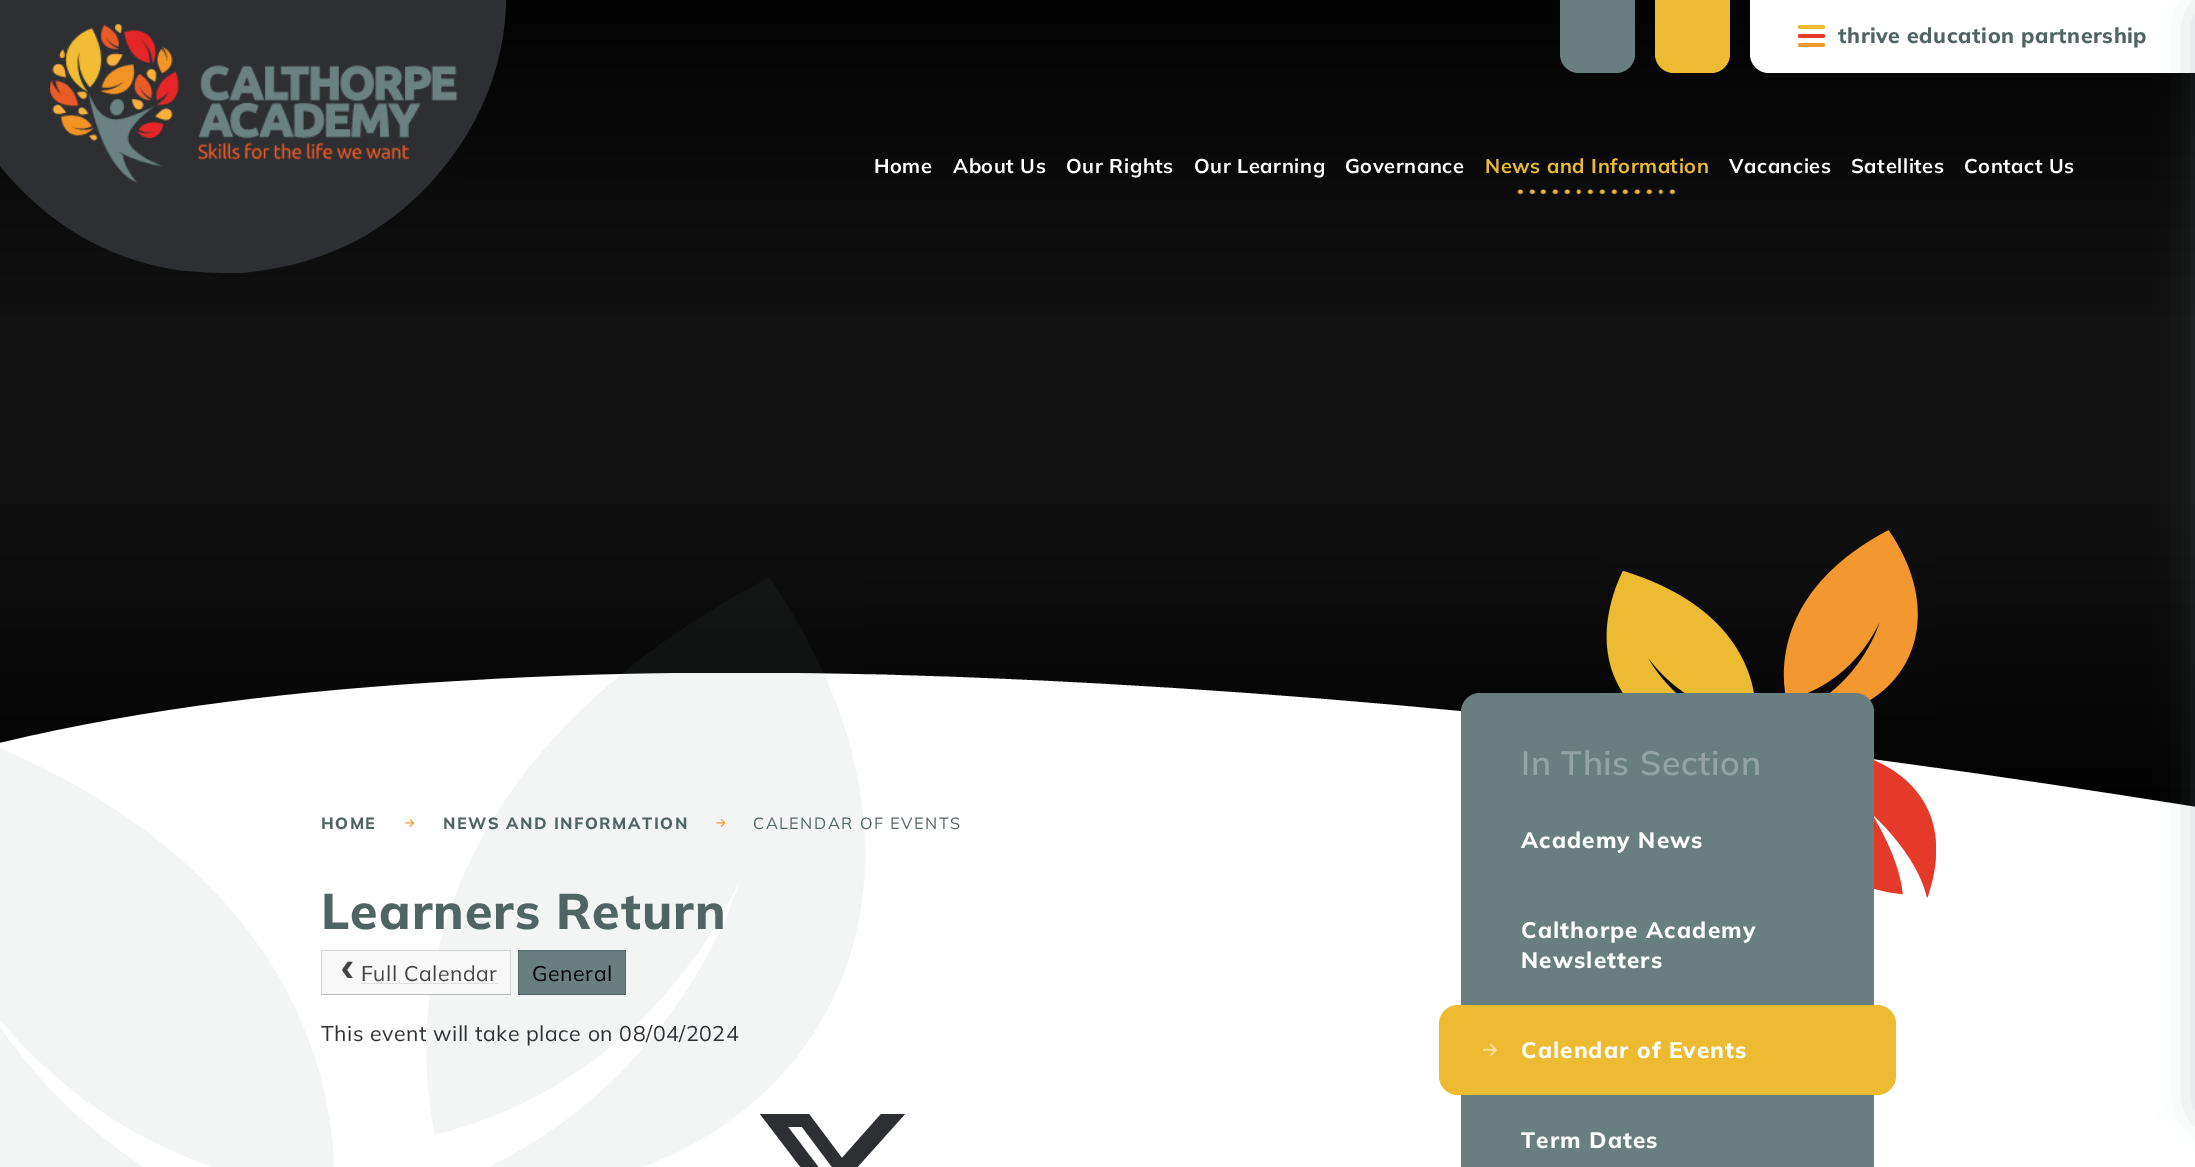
%!PS
<< /PageSize [2195 1167] /PageUsesTransparency true >> setpagedevice
/rgb { 3 { 255 div 3 1 roll } repeat setrgbcolor } def
/font { [ exch dup neg 0 0 3 -1 roll 0 0 ] selectfont } def
/alpha { dup .setfillconstantalpha .setstrokeconstantalpha } def
/roundrect { 5 dict begin { /r /h /w /y /x } { exch def } forall
  x r add y moveto x w add y 2 copy h add r arct x w add y h add x 1 index r arct
  x y h add x y r arct x y 2 copy exch w add exch r arct closepath end } def
/shadow { 12 dict begin { /a /b /q /h /w /y /x } { exch def } forall gsave /was 0 def
  9 -2 -9 { dup b mul 4 div /e exch def 1 sub .425 mul 2.718 exch exp 1 add a .99 .min exch div /now exch def
    1 1 now sub 1 was sub div sub alpha /was now def
    w h .min e 2 mul add 0 gt { x e sub y e sub w e 2 mul add h e 2 mul add
      q e add b .6 mul add w h .min 2 div e add .min 0 .max roundrect fill } if } for grestore end } def
/picture { 5 dict begin { /h /w /y /x /name } { exch def } forall
  gsave x y translate w h scale
  w h 8 [w 0 0 h 0 0] name (r) file false 3 colorimage grestore end } def
0 .pushpdf14devicefilter
0 1167 translate 1 -1 scale
4 setmiterlimit
255 255 255 rgb
0 0 2195 1167 rectfill
gsave 0 0 moveto 2195 0 lineto 2195 807 lineto 0 807 lineto closepath clip newpath
<< /ShadingType 2 /ColorSpace /DeviceRGB /Coords [1098 0 1098 813] /Extend [true true] /Function << /FunctionType 3 /Domain [0 1] /Functions [<< /FunctionType 2 /Domain [0 1] /C0 [0.012 0.012 0.012] /C1 [0.067 0.067 0.067] /N 1 >> << /FunctionType 2 /Domain [0 1] /C0 [0.067 0.067 0.067] /C1 [0.067 0.067 0.067] /N 1 >> << /FunctionType 2 /Domain [0 1] /C0 [0.067 0.067 0.067] /C1 [0.008 0.008 0.008] /N 1 >>] /Bounds [0.4 0.6] /Encode [0 1 0 1 0 1] >> >> shfill grestore
gsave
0 673 2195 141 rectclip
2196 814 moveto -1 814 lineto -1 743 lineto 149 707 303 690 457 681 curveto 647 669 837 671 1027 680 curveto 1419 698 1809 745 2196 807 curveto closepath fill
grestore
(img/1.rgb) 1606 530 330 368 picture
45 47 51 rgb
234 273 moveto 215 273 196 272 178 270 curveto 105 259 46 222 0 166 curveto 0 0 lineto 506 0 lineto 505 67 478 129 434 179 curveto 413 202 390 221 363 237 curveto 339 250 313 260 286 266 curveto 271 269 250 273 234 273 curveto closepath fill
(img/2.rgb) 49 24 409 159 picture
105 127 127 rgb
1560 0 moveto 1635 0 lineto 1635 54 lineto 1635 64.5 1626.5 73 1616 73 curveto 1579 73 lineto 1568.5 73 1560 64.5 1560 54 curveto closepath fill
237 187 49 rgb
1655 0 moveto 1730 0 lineto 1730 54 lineto 1730 64.5 1721.5 73 1711 73 curveto 1674 73 lineto 1663.5 73 1655 64.5 1655 54 curveto closepath fill
255 255 255 rgb
1750 0 moveto 2195 0 lineto 2195 73 lineto 1769 73 lineto 1758.5 73 1750 64.5 1750 54 curveto closepath fill
237 187 49 rgb
1798 25 27 4 2 roundrect fill
229 57 42 rgb
1798 34 27 4 2 roundrect fill
242 152 47 rgb
1798 43 27 4 2 roundrect fill
(img/3.rgb) 1517 188 159 8 picture
105 127 127 rgb
2195 0 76 1125 19 19 0.3 shadow
(img/4.rgb) 0 578 865 589 picture
(img/5.rgb) 405 819 9 8 picture
(img/6.rgb) 716 819 9 8 picture
248 248 248 rgb
321 950 190 45 rectfill
211 211 211 rgb
321 950 moveto 511 950 lineto 510 951 lineto 322 951 lineto closepath fill
0.15 alpha
0 0 0 rgb
511 950 moveto 511 995 lineto 510 994 lineto 510 951 lineto closepath fill
0.25 alpha
511 995 moveto 321 995 lineto 322 994 lineto 510 994 lineto closepath fill
0.15 alpha
321 995 moveto 321 950 lineto 322 951 lineto 322 994 lineto closepath fill
1 alpha
219 224 224 rgb
361 983 137 1 rectfill
105 127 127 rgb
518 950 108 45 rectfill
89 108 108 rgb
518 950 moveto 626 950 lineto 625 951 lineto 519 951 lineto closepath fill
0.15 alpha
0 0 0 rgb
626 950 moveto 626 995 lineto 625 994 lineto 625 951 lineto closepath fill
0.25 alpha
626 995 moveto 518 995 lineto 519 994 lineto 625 994 lineto closepath fill
0.15 alpha
518 995 moveto 518 950 lineto 519 951 lineto 519 994 lineto closepath fill
1 alpha
45 47 51 rgb
881 1114 moveto 905 1114 lineto 853 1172 lineto 914 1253 lineto 867 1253 lineto 829 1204 lineto 787 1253 lineto 763 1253 lineto 818 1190 lineto 760 1114 lineto 809 1114 lineto 842 1158 lineto closepath 873 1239 moveto 886 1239 lineto 802 1127 lineto 788 1127 lineto closepath fill
105 127 127 rgb
1461 693 413 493 19 roundrect fill
237 187 49 rgb
1439 1005 457 90 19 roundrect fill
(img/7.rgb) 1483 1043 14 13 picture
/Mulish-ExtraBold 21.25 font
81 100 100 rgb
1838 43 moveto 0.55 0 (thrive education partnership) ashow
/Mulish-Bold 20 font
255 255 255 rgb
874 173 moveto 0.55 0 (Home) ashow
953 173 moveto 0.55 0 (About Us) ashow
1066 173 moveto 0.55 0 (Our Rights) ashow
1194 173 moveto 0.55 0 (Our Learning) ashow
1345 173 moveto 0.55 0 (Governance) ashow
237 187 49 rgb
1485 173 moveto 0.55 0 (News and Information) ashow
255 255 255 rgb
1729 173 moveto 0.55 0 (Vacancies) ashow
1851 173 moveto 0.55 0 (Satellites) ashow
1964 173 moveto 0.55 0 (Contact Us) ashow
/Mulish-ExtraBold 16.25 font
81 100 100 rgb
321 829 moveto 1.5 0 (HOME) ashow
443 829 moveto 1.5 0 (NEWS AND INFORMATION) ashow
/Mulish-Regular 16.25 font
753 829 moveto 1.5 0 (CALENDAR OF EVENTS) ashow
/Mulish-ExtraBold 50 font
321 929 moveto 1 0 (Learners Return) ashow
/LiberationMono-Bold 42 font
68 68 68 rgb
335 981 moveto 0.55 0 (‹) ashow
/Mulish-Regular 21.25 font
361 981 moveto 0.55 0 (Full Calendar) ashow
0 0 0 rgb
532 981 moveto 0.55 0 (General) ashow
45 47 51 rgb
321 1041 moveto 0.55 0 (This event will take place on 08/04/2024) ashow
/Mulish-SemiBold 33.75 font
147 163 163 rgb
1521 775 moveto 0.7 0 (In This Section) ashow
/Mulish-ExtraBold 22.5 font
255 255 255 rgb
1521 848 moveto 1.1 0 (Academy News) ashow
1521 938 moveto 1.1 0 (Calthorpe Academy) ashow
1521 968 moveto 1.1 0 (Newsletters) ashow
1521 1058 moveto 1.1 0 (Calendar of Events) ashow
1521 1148 moveto 1.1 0 (Term Dates) ashow
.poppdf14devicefilter showpage
